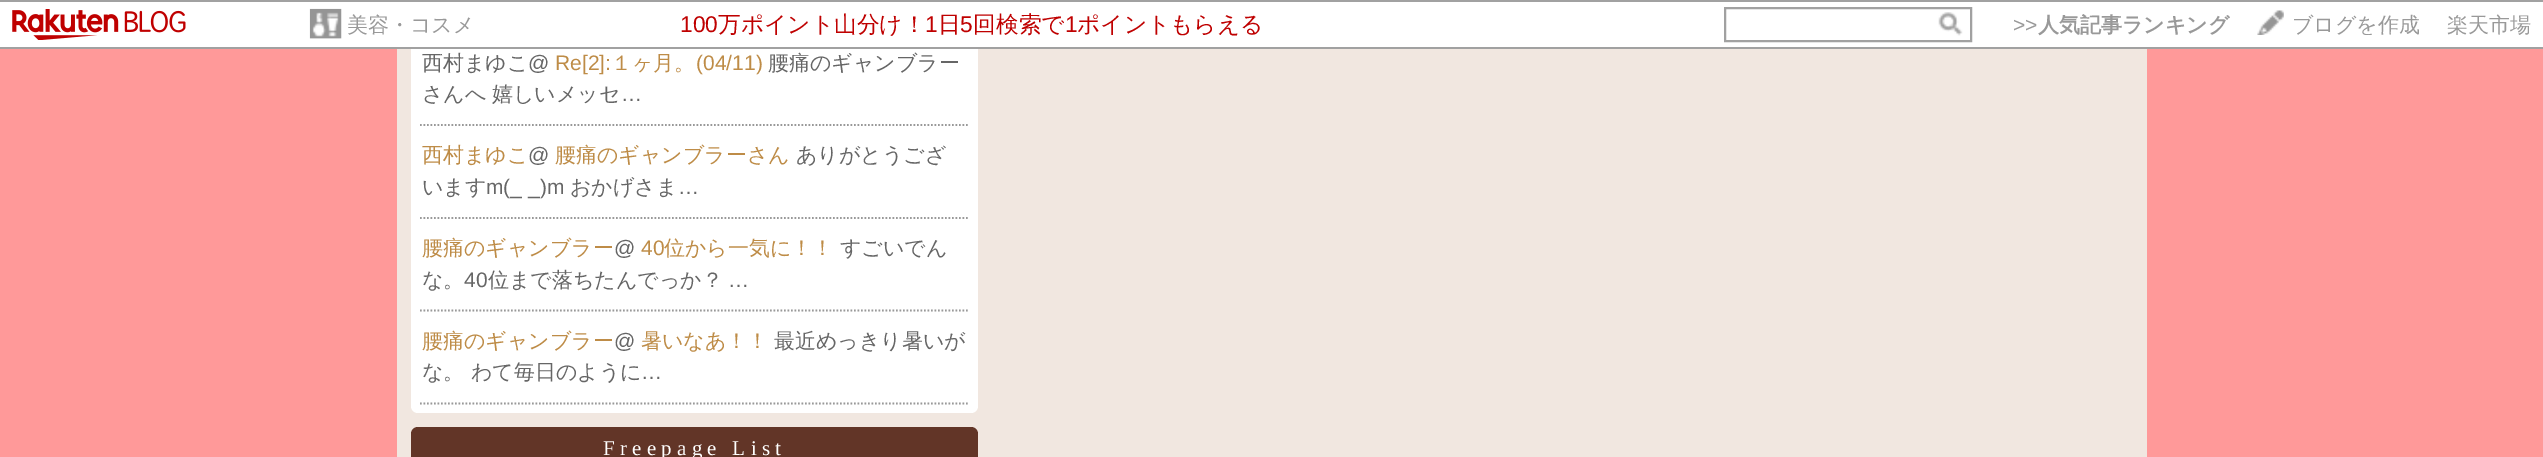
%!PS
<< /PageSize [2543 457] >> setpagedevice
/rgb { 3 { 255 div 3 1 roll } repeat setrgbcolor } def
/font { [ exch dup neg 0 0 3 -1 roll 0 0 ] selectfont } def
/picture { 5 dict begin { /h /w /y /x /name } { exch def } forall
  gsave x y translate w h scale
  w h 8 [w 0 0 h 0 0] name (r) file false 3 colorimage grestore end } def
0 457 translate 1 -1 scale
4 setmiterlimit
255 153 153 rgb
0 0 2543 457 rectfill
241 231 224 rgb
397 49 1750 408 rectfill
255 255 255 rgb
411 -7 moveto 978 -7 lineto 978 406 lineto 978 410 975 413 971 413 curveto 418 413 lineto 414 413 411 410 411 406 curveto closepath fill
[
  [0 2 2543 45 255 255 255]
  [0 0 2543 2 161 161 161]
  [0 47 2543 2 161 161 161]
] { aload pop rgb rectfill } forall
(img/1.rgb) 12 9 174 31 picture
(img/2.rgb) 309 8 33 31 picture
2 setlinewidth
1725 8 246 33 rectstroke
(img/3.rgb) 1938 12 25 24 picture
(img/4.rgb) 2257 10 27 25 picture
153 153 153 rgb
1.8 setlinewidth
[1.75 1.75] 0 setdash
420 125 moveto 969.5 125 lineto stroke
420 218 moveto 969.5 218 lineto stroke
420 310.5 moveto 969.5 310.5 lineto stroke
420 403.5 moveto 969.5 403.5 lineto stroke
98 53 39 rgb
418 427 moveto 971 427 lineto 975 427 978 430 978 434 curveto 978 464 lineto 411 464 lineto 411 434 lineto 411 430 414 427 418 427 curveto closepath fill
/WenQuanYiZenHei-Medium 21 font
153 153 153 rgb
347 32 moveto (美容・コスメ) show
/LiberationSans-Regular 22.75 font
191 0 0 rgb
680 32 moveto (100) show
/WenQuanYiZenHei-Medium 22.75 font
718 32 moveto (万ポイント山分け！) show
/LiberationSans-Regular 22.75 font
925 32 moveto (1) show
/WenQuanYiZenHei-Medium 22.75 font
938 32 moveto (日) show
/LiberationSans-Regular 22.75 font
960 32 moveto (5) show
/WenQuanYiZenHei-Medium 22.75 font
973 32 moveto (回検索で) show
/LiberationSans-Regular 22.75 font
1065 32 moveto (1) show
/WenQuanYiZenHei-Medium 22.75 font
1077 32 moveto (ポイントもらえる) show
/LiberationSans-Regular 21 font
153 153 153 rgb
2013 32 moveto (>>) show
/WenQuanYiZenHei-Bold 21 font
2038 32 moveto (人気記事ランキング) show
gsave
2013 7 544 28 rectclip
/WenQuanYiZenHei-Medium 21 font
2292 32 moveto (ブログを作成) show
grestore
/WenQuanYiZenHei-Medium 21 font
2447 32 moveto (楽天市場) show
102 102 102 rgb
422 70 moveto (西村まゆこ) show
/LiberationSans-Regular 21 font
528 70 moveto (@) show
190 140 71 rgb
555 70 moveto (Re[2]:) show
/WenQuanYiZenHei-Medium 21 font
611 70 moveto (１ヶ月。) show
/LiberationSans-Regular 21 font
696 70 moveto (\(04/11\)) show
/WenQuanYiZenHei-Medium 21 font
102 102 102 rgb
[
  [(腰痛のギャンブラー) 768 70]
  [(さんへ) 422 101]
  [(嬉しいメッセ) 492 101]
] { aload pop moveto show } forall
/LiberationSans-Regular 21 font
621 101 moveto (…) show
/WenQuanYiZenHei-Medium 21 font
190 140 71 rgb
422 162 moveto (西村まゆこ) show
/LiberationSans-Regular 21 font
102 102 102 rgb
528 162 moveto (@) show
/WenQuanYiZenHei-Medium 21 font
190 140 71 rgb
555 162 moveto (腰痛のギャンブラーさん) show
102 102 102 rgb
796 162 moveto (ありがとうござ) show
422 194 moveto (います) show
/LiberationSans-Regular 21 font
486 194 moveto (m\(_ _\)m) show
/WenQuanYiZenHei-Medium 21 font
570 194 moveto (おかげさま) show
/LiberationSans-Regular 21 font
678 194 moveto (…) show
/WenQuanYiZenHei-Medium 21 font
190 140 71 rgb
422 255 moveto (腰痛のギャンブラー) show
/LiberationSans-Regular 21 font
102 102 102 rgb
614 255 moveto (@) show
190 140 71 rgb
641 255 moveto (40) show
/WenQuanYiZenHei-Medium 21 font
664 255 moveto (位から一気に！！) show
102 102 102 rgb
840 255 moveto (すごいでん) show
422 287 moveto (な。) show
/LiberationSans-Regular 21 font
464 287 moveto (40) show
/WenQuanYiZenHei-Medium 21 font
488 287 moveto (位まで落ちたんでっか？) show
/LiberationSans-Regular 21 font
728 287 moveto (…) show
/WenQuanYiZenHei-Medium 21 font
190 140 71 rgb
422 348 moveto (腰痛のギャンブラー) show
/LiberationSans-Regular 21 font
102 102 102 rgb
614 348 moveto (@) show
/WenQuanYiZenHei-Medium 21 font
190 140 71 rgb
641 348 moveto (暑いなあ！！) show
102 102 102 rgb
774 348 moveto (最近めっきり暑いが) show
422 379 moveto (な。 わて毎日のように) show
/LiberationSans-Regular 21 font
641 379 moveto (…) show
/LiberationSerif-Regular 21 font
255 255 255 rgb
603 455 moveto 5.25 0 (Freepage List) ashow
showpage
